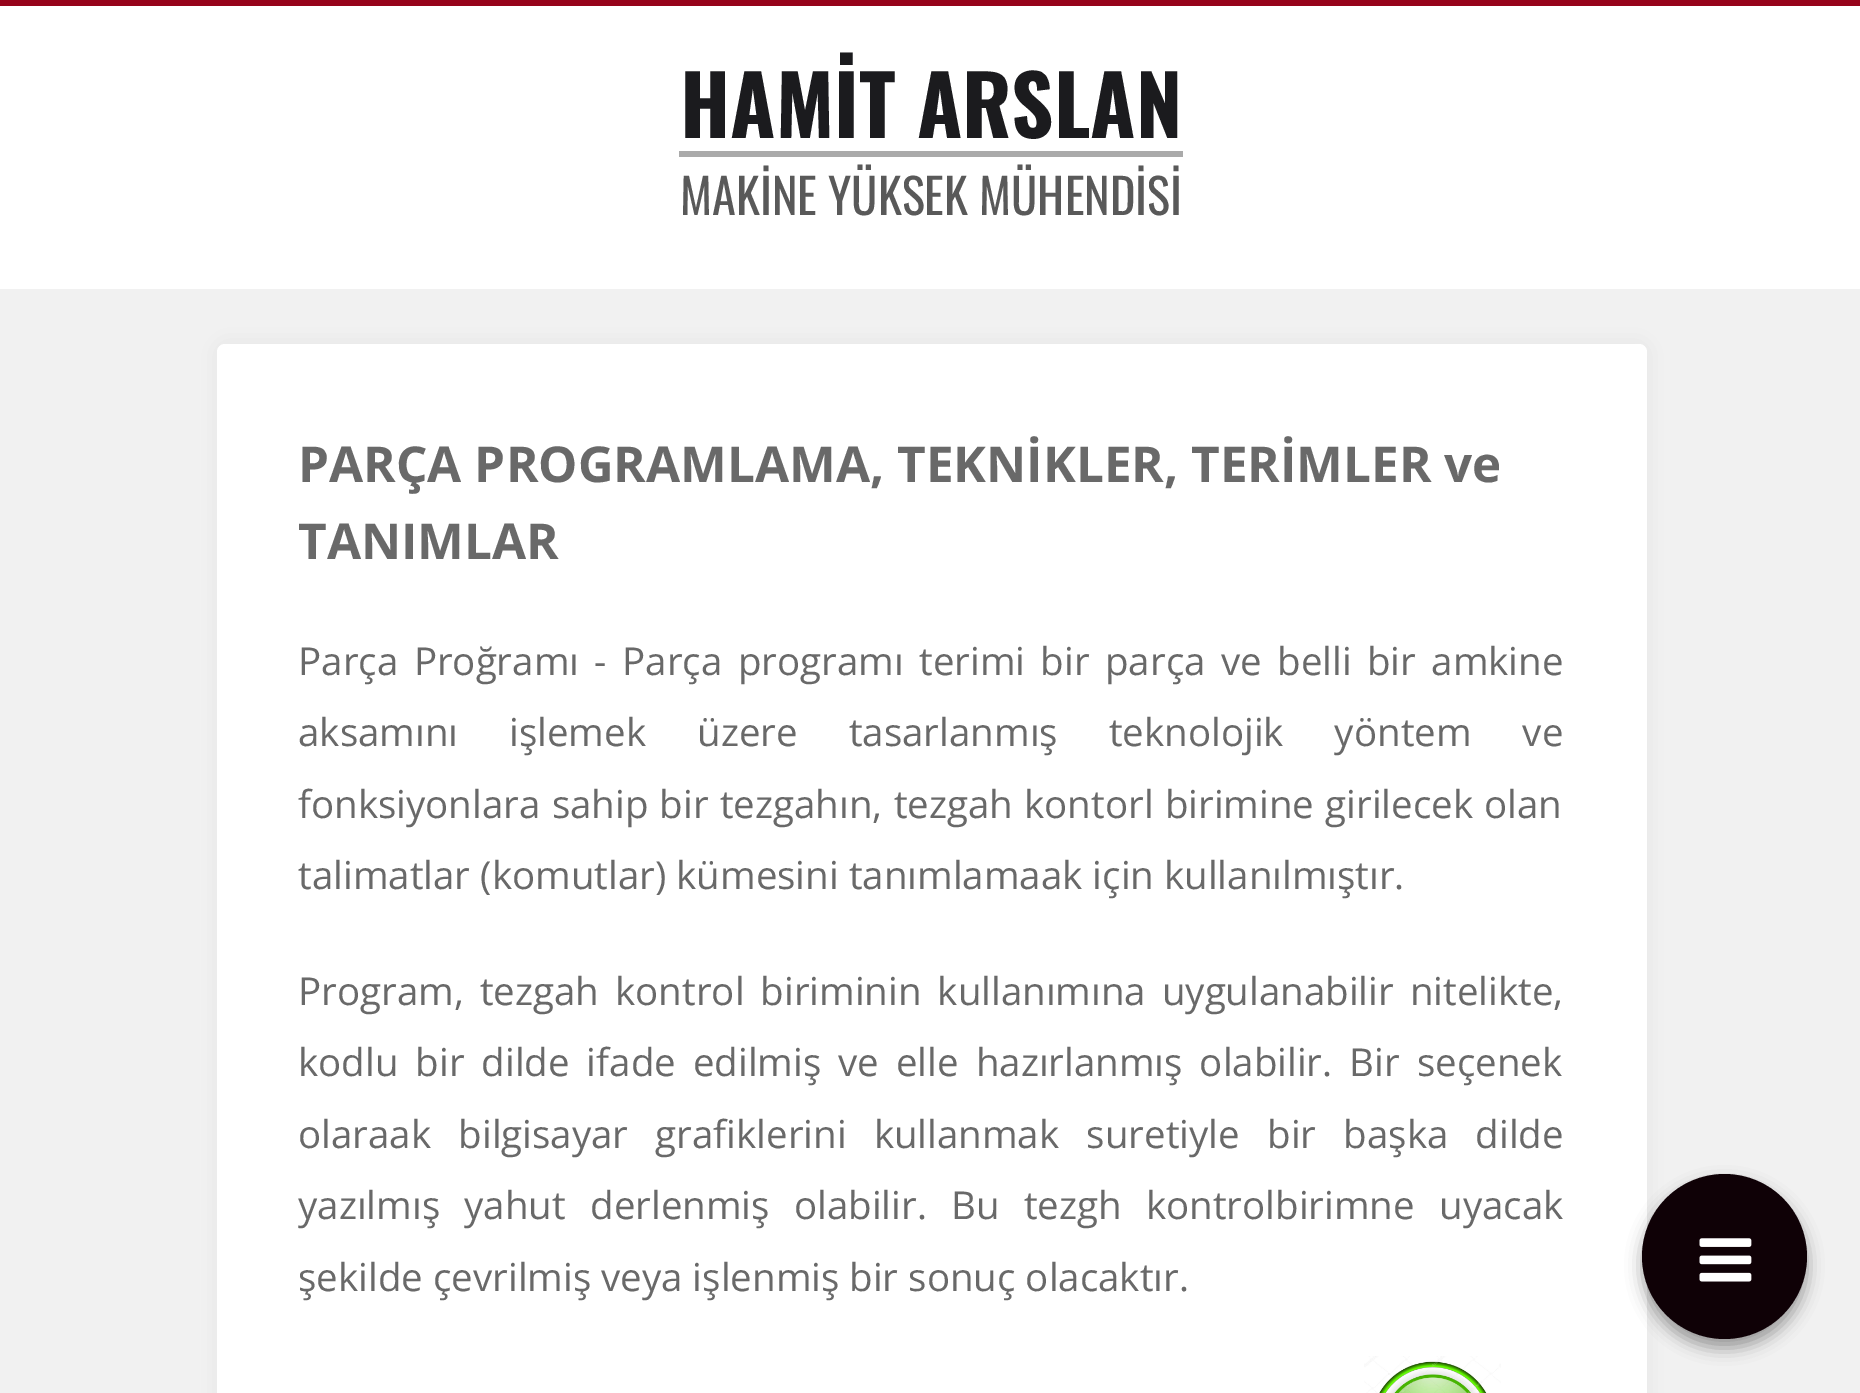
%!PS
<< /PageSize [1860 1393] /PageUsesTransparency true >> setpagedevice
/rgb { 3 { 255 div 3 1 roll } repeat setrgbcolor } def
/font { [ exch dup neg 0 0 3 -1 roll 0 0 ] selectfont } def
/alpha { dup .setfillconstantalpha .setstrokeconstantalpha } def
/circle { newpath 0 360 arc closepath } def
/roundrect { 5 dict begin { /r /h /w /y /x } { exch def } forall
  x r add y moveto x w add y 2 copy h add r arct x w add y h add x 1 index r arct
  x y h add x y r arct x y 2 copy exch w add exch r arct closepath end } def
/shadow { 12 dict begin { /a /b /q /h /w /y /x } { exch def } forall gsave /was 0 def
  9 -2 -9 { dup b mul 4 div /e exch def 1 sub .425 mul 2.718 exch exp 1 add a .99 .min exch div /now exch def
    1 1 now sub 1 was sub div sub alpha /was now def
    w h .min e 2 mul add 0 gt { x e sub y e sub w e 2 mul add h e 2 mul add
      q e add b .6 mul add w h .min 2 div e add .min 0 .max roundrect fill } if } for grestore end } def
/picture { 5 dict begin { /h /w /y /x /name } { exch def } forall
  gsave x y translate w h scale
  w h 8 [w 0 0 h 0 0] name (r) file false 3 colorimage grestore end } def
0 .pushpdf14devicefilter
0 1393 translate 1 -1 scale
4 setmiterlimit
241 241 241 rgb
0 0 1860 1393 rectfill
[
  [0 6 1860 283 255 255 255]
  [0 0 1860 6 150 3 26]
  [679 151 504 6 170 170 170]
] { aload pop rgb rectfill } forall
230 230 230 rgb
215 341 1435 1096 11 11 1 shadow
255 255 255 rgb
217 344 1430 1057 8 roundrect fill
(img/1.rgb) 1364 1356 137 37 picture
0 0 0 rgb
1642 1183 165 165 82.5 8 0.23 shadow
1642 1183 165 165 82.5 8 0.16 shadow
15 1 6 rgb
1724.5 1256.5 82.5 circle fill
(img/2.rgb) 1699 1238 53 44 picture
/Oswald-Bold 82.5 font
27 27 30 rgb
680 138 moveto (HAMİT ARSLAN) show
/Oswald-Regular 48.4 font
89 89 89 rgb
680 215 moveto (MAKİNE YÜKSEK MÜHENDİSİ) show
/OpenSans-Bold 49.5 font
105 105 105 rgb
298 482 moveto (PARÇA PROGRAMLAMA, TEKNİKLER, TERİMLER ve) show
298 559 moveto (TANIMLAR) show
/OpenSans-Regular 38.5 font
298 675 moveto 5.4 0 32 (Parça Proğramı - Parça programı terimi bir parça ve belli bir amkine) widthshow
298 746 moveto 41 0 32 (aksamını işlemek üzere tasarlanmış teknolojik yöntem ve) widthshow
298 818 moveto 1.25 0 32 (fonksiyonlara sahip bir tezgahın, tezgah kontorl birimine girilecek olan) widthshow
298 889 moveto (talimatlar \(komutlar\) kümesini tanımlamaak için kullanılmıştır.) show
298 1005 moveto 6 0 32 (Program, tezgah kontrol biriminin kullanımına uygulanabilir nitelikte,) widthshow
298 1076 moveto 7 0 32 (kodlu bir dilde ifade edilmiş ve elle hazırlanmış olabilir. Bir seçenek) widthshow
298 1148 moveto 17.25 0 32 (olaraak bilgisayar grafiklerini kullanmak suretiyle bir başka dilde) widthshow
298 1219 moveto 14.25 0 32 (yazılmış yahut derlenmiş olabilir. Bu tezgh kontrolbirimne uyacak) widthshow
298 1291 moveto (şekilde çevrilmiş veya işlenmiş bir sonuç olacaktır.) show
.poppdf14devicefilter showpage
